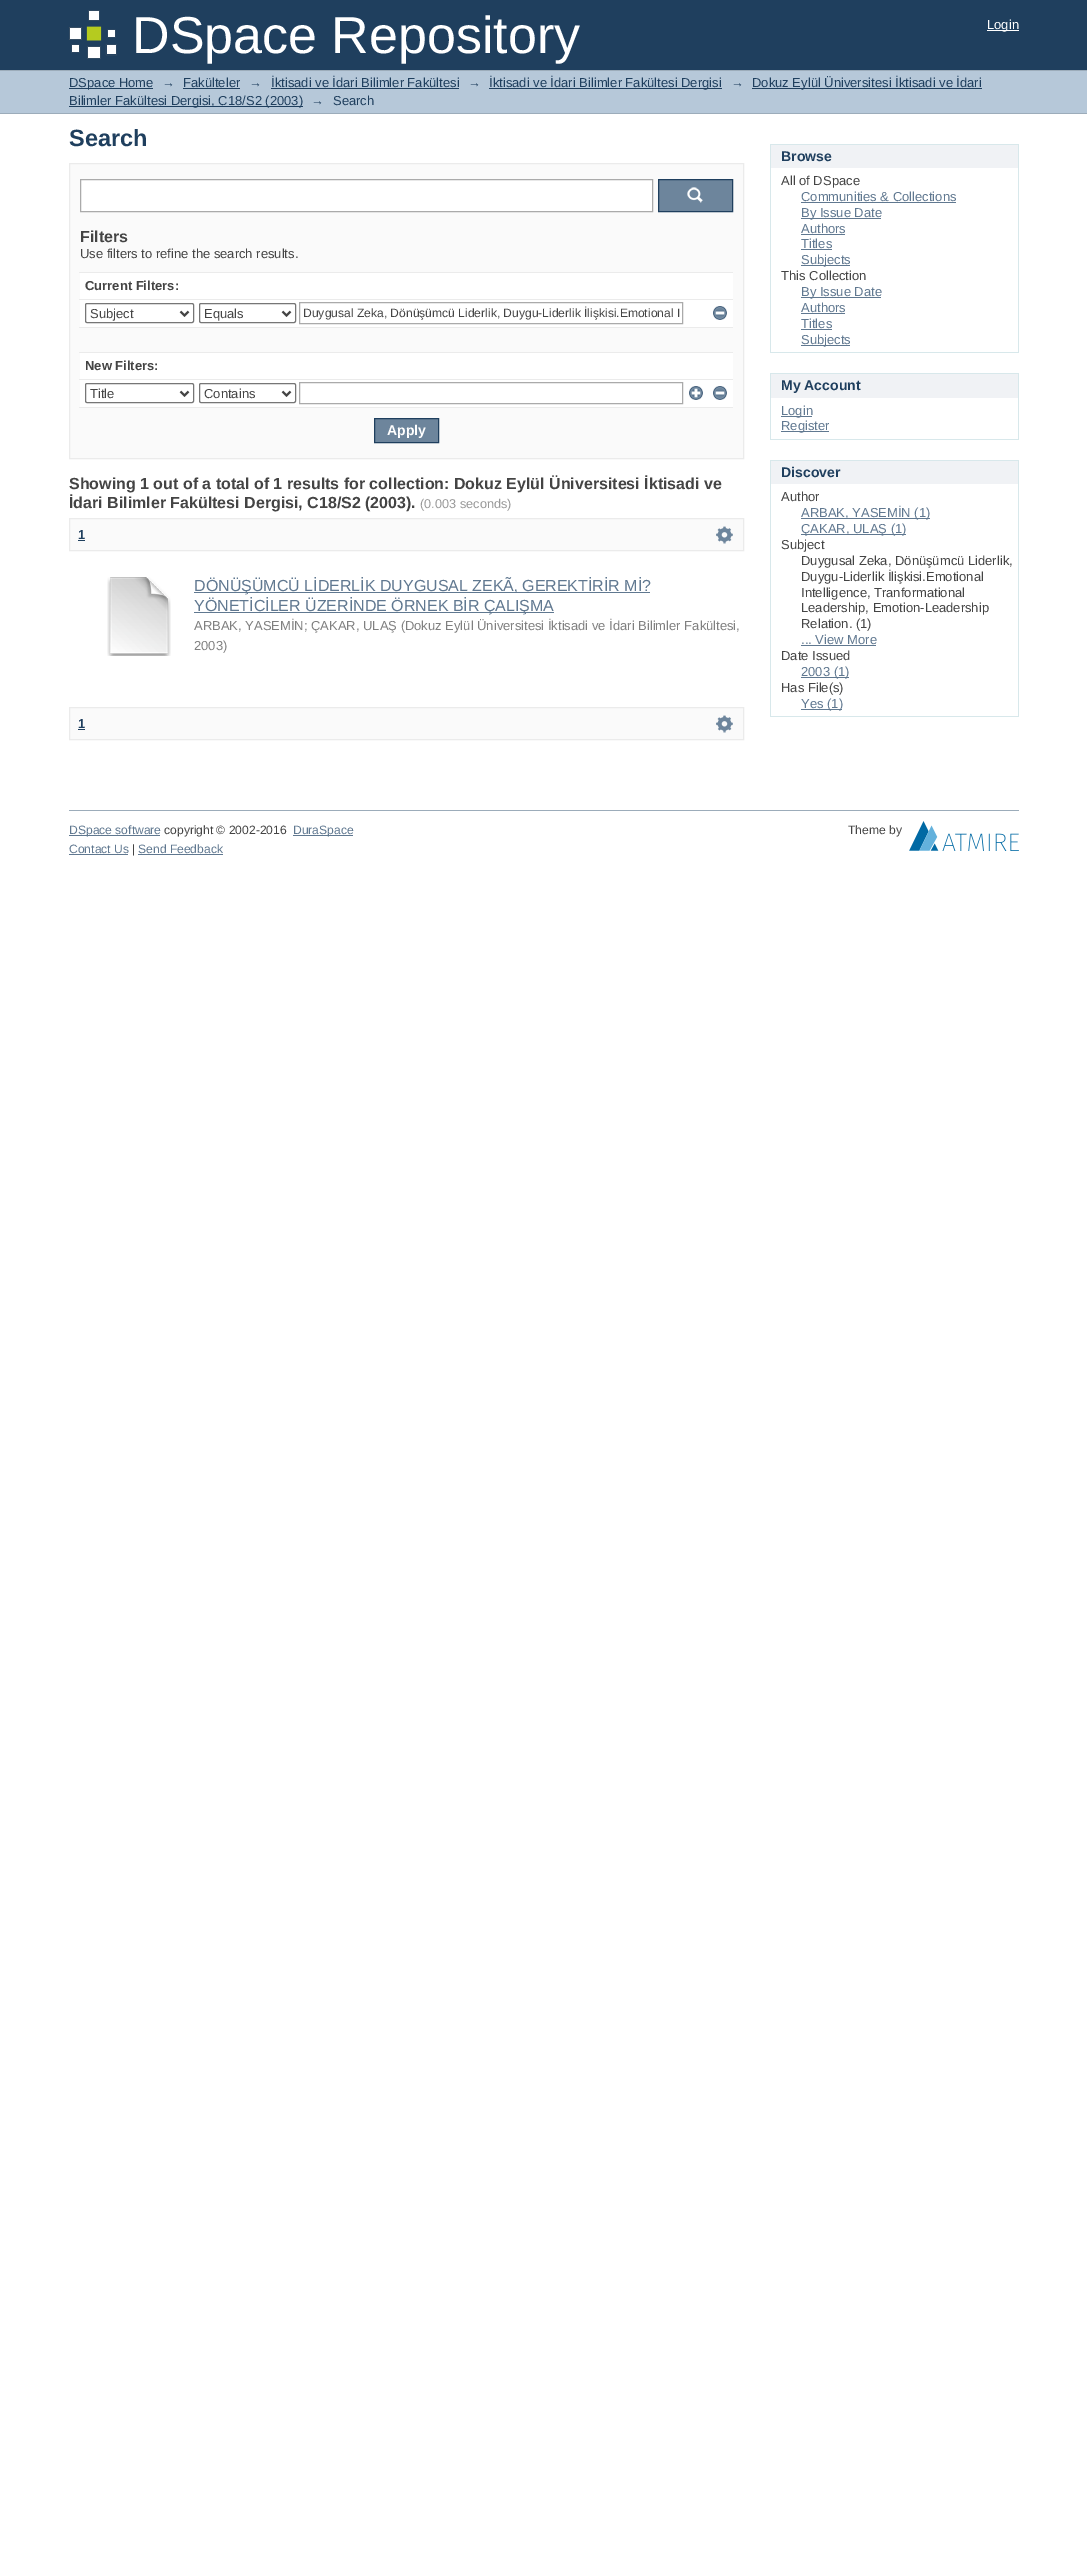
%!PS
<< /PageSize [1087 2564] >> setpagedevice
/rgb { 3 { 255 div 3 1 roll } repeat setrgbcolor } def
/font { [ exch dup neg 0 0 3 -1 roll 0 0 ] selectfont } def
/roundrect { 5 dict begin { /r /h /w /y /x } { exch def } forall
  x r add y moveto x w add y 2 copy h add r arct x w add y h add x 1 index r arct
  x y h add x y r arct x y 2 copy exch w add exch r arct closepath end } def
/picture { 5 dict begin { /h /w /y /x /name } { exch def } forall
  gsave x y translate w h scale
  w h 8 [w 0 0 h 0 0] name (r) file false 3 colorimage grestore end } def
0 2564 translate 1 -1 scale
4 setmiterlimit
255 255 255 rgb
0 0 1087 2564 rectfill
31 63 94 rgb
0 0 1087 70 rectfill
(img/1.rgb) 69 10 48 49 picture
[
  [987 30 32 1 255 255 255]
  [0 71 1087 42 182 200 217]
  [0 70 1087 1 156 172 186]
  [0 113 1087 1 156 172 186]
  [69 88 84 1 31 63 94]
  [183 88 57 1 31 63 94]
  [271 88 188 1 31 63 94]
  [489 88 233 1 31 63 94]
  [752 88 230 1 31 63 94]
  [69 106 234 1 31 63 94]
] { aload pop rgb rectfill } forall
250 250 250 rgb
69.5 163.5 moveto 743.5 163.5 lineto 743.5 458.5 lineto 69.5 458.5 lineto closepath gsave fill grestore
235 235 235 rgb
stroke
255 255 255 rgb
80.5 179.5 moveto 652.5 179.5 lineto 652.5 211.5 lineto 80.5 211.5 lineto closepath gsave fill grestore
170 170 170 rgb
stroke
109 133 156 rgb
659 180 73 31 rectfill
(img/2.rgb) 687 187 16 16 picture
31 63 94 rgb
658.5 179.5 74 32 rectstroke
[
  [80 273 653 134 255 255 255]
  [79 272 654 1 235 235 235]
  [79 299 654 1 235 235 235]
] { aload pop rgb rectfill } forall
118 118 118 rgb
85.5 303.5 108 19 1.5 roundrect stroke
68 68 68 rgb
2 setlinewidth
180.5 311.5 moveto 184.5 315.5 lineto 188.5 311.5 lineto stroke
118 118 118 rgb
1 setlinewidth
199.5 303.5 96 19 1.5 roundrect stroke
68 68 68 rgb
2 setlinewidth
282.5 311.5 moveto 286.5 315.5 lineto 290.5 311.5 lineto stroke
170 170 170 rgb
1 setlinewidth
299.5 302.5 383 21 rectstroke
(img/3.rgb) 713 306 14 14 picture
[
  [80 328 653 24 250 250 250]
  [79 327 654 1 235 235 235]
  [79 352 654 1 235 235 235]
  [79 379 654 1 235 235 235]
] { aload pop rgb rectfill } forall
118 118 118 rgb
85.5 383.5 108 19 1.5 roundrect stroke
68 68 68 rgb
2 setlinewidth
180.5 391.5 moveto 184.5 395.5 lineto 188.5 391.5 lineto stroke
118 118 118 rgb
1 setlinewidth
199.5 383.5 96 19 1.5 roundrect stroke
68 68 68 rgb
2 setlinewidth
282.5 391.5 moveto 286.5 395.5 lineto 290.5 391.5 lineto stroke
170 170 170 rgb
1 setlinewidth
299.5 382.5 383 21 rectstroke
(img/4.rgb) 689 386 14 14 picture
(img/3.rgb) 713 386 14 14 picture
235 235 235 rgb
79 407 654 1 rectfill
109 133 156 rgb
374.5 418.5 moveto 438.5 418.5 lineto 438.5 442.5 lineto 374.5 442.5 lineto closepath gsave fill grestore
31 63 94 rgb
stroke
250 250 250 rgb
69.5 518.5 moveto 743.5 518.5 lineto 743.5 550.5 lineto 69.5 550.5 lineto closepath gsave fill grestore
235 235 235 rgb
stroke
31 63 94 rgb
78 540 7 1 rectfill
(img/5.rgb) 716 526 17 18 picture
(img/6.rgb) 107 577 64 79 picture
96 120 144 rgb
194 592 456 1 rectfill
194 612 360 1 rectfill
250 250 250 rgb
69.5 707.5 moveto 743.5 707.5 lineto 743.5 739.5 lineto 69.5 739.5 lineto closepath gsave fill grestore
235 235 235 rgb
stroke
31 63 94 rgb
78 729 7 1 rectfill
(img/5.rgb) 716 715 17 18 picture
[
  [771 145 247 23 240 242 245]
  [770 144 249 1 216 232 235]
  [1018 144 1 209 216 232 235]
  [770 144 1 24 216 232 235]
  [770 352 249 1 216 232 235]
  [770 168 1 185 216 232 235]
  [801 202 155 1 96 120 144]
  [801 218 80 1 96 120 144]
  [801 234 44 1 96 120 144]
  [801 249 31 1 96 120 144]
  [801 265 49 1 96 120 144]
  [801 297 80 1 96 120 144]
  [801 313 44 1 96 120 144]
  [801 329 31 1 96 120 144]
  [801 345 49 1 96 120 144]
  [771 374 247 24 240 242 245]
  [770 373 249 1 216 232 235]
  [1018 373 1 67 216 232 235]
  [770 373 1 25 216 232 235]
  [770 439 249 1 216 232 235]
  [770 398 1 42 216 232 235]
  [781 416 31 1 96 120 144]
  [781 431 48 1 96 120 144]
  [771 461 247 23 240 242 245]
  [770 460 249 1 216 232 235]
  [1018 460 1 257 216 232 235]
  [770 460 1 24 216 232 235]
  [770 716 249 1 216 232 235]
  [770 484 1 233 216 232 235]
  [801 518 129 1 96 120 144]
  [801 534 105 1 96 120 144]
  [801 645 75 1 96 120 144]
  [801 677 48 1 96 120 144]
  [801 709 41 1 96 120 144]
  [69 810 950 1 156 172 186]
  [69 835 91 1 96 120 144]
  [293 835 60 1 96 120 144]
] { aload pop rgb rectfill } forall
(img/7.rgb) 909 821 110 30 picture
69 854 59 1 rectfill
138 854 85 1 rectfill
/LiberationSans-Regular 52 font
255 255 255 rgb
132 53 moveto (DSpace Repository) show
/LiberationSans-Regular 13 font
987 29 moveto (Login) show
31 63 94 rgb
[
  [(DSpace Home) 69 87]
  [(→) 162 87]
  [(Fakülteler) 183 87]
  [(→) 249 87]
  [(İktisadi ve İdari Bilimler Fakültesi) 271 87]
  [(→) 468 87]
  [(İktisadi ve İdari Bilimler Fakültesi Dergisi) 489 87]
  [(→) 731 87]
  [(Dokuz Eylül Üniversitesi İktisadi ve İdari) 752 87]
  [(Bilimler Fakültesi Dergisi, C18/S2 \(2003\)) 69 105]
  [(→) 311 105]
  [(Search) 333 105]
] { aload pop moveto show } forall
/LiberationSans-Bold 23.5 font
69 146 moveto (Search) show
/LiberationSans-Bold 16 font
68 68 68 rgb
80 242 moveto (Filters) show
/LiberationSans-Regular 13 font
80 258 moveto (Use filters to refine the search results.) show
/LiberationSans-Bold 13 font
85 290 moveto (Current Filters:) show
/LiberationSans-Regular 13 font
90 318 moveto (Subject) show
204 318 moveto (Equals) show
/LiberationSans-Regular 12.1 font
303 317 moveto (Duygusal Zeka, Dönüşümcü Liderlik, Duygu-Liderlik İlişkisi.Emotional I) show
/LiberationSans-Bold 13 font
85 370 moveto (New Filters:) show
/LiberationSans-Regular 13 font
90 398 moveto (Title) show
204 398 moveto (Contains) show
/LiberationSans-Bold 14 font
255 255 255 rgb
387 435 moveto (Apply) show
/LiberationSans-Bold 16 font
68 68 68 rgb
69 489 moveto (Showing 1 out of a total of 1 results for collection: Dokuz Eylül Üniversitesi İktisadi ve) show
69 508 moveto (İdari Bilimler Fakültesi Dergisi, C18/S2 \(2003\).) show
/LiberationSans-Regular 12.75 font
153 153 153 rgb
420 508 moveto (\(0.003 seconds\)) show
/LiberationSans-Bold 13 font
31 63 94 rgb
78 539 moveto (1) show
/LiberationSans-Regular 16 font
96 120 144 rgb
194 591 moveto (DÖNÜŞÜMCÜ LİDERLİK DUYGUSAL ZEKÃ‚ GEREKTİRİR Mİ?) show
194 611 moveto (YÖNETİCİLER ÜZERİNDE ÖRNEK BİR ÇALIŞMA) show
/LiberationSans-Regular 13 font
128 128 128 rgb
194 630 moveto (ARBAK, YASEMİN; ÇAKAR, ULAŞ \(Dokuz Eylül Üniversitesi İktisadi ve İdari Bilimler Fakültesi,) show
194 650 moveto (2003\)) show
/LiberationSans-Bold 13 font
31 63 94 rgb
78 728 moveto (1) show
/LiberationSans-Bold 14 font
781 161 moveto (Browse) show
/LiberationSans-Regular 13 font
68 68 68 rgb
781 185 moveto (All of DSpace) show
96 120 144 rgb
[
  [(Communities & Collections) 801 201]
  [(By Issue Date) 801 217]
  [(Authors) 801 233]
  [(Titles) 801 248]
  [(Subjects) 801 264]
] { aload pop moveto show } forall
68 68 68 rgb
781 280 moveto (This Collection) show
96 120 144 rgb
[
  [(By Issue Date) 801 296]
  [(Authors) 801 312]
  [(Titles) 801 328]
  [(Subjects) 801 344]
] { aload pop moveto show } forall
/LiberationSans-Bold 14 font
31 63 94 rgb
781 390 moveto (My Account) show
/LiberationSans-Regular 13 font
96 120 144 rgb
781 415 moveto (Login) show
781 430 moveto (Register) show
/LiberationSans-Bold 14 font
31 63 94 rgb
781 477 moveto (Discover) show
/LiberationSans-Regular 13 font
68 68 68 rgb
781 501 moveto (Author) show
96 120 144 rgb
801 517 moveto (ARBAK, YASEMİN \(1\)) show
801 533 moveto (ÇAKAR, ULAŞ \(1\)) show
68 68 68 rgb
[
  [(Subject) 781 549]
  [(Duygusal Zeka, Dönüşümcü Liderlik,) 801 565]
  [(Duygu-Liderlik İlişkisi.Emotional) 801 581]
  [(Intelligence, Tranformational) 801 597]
  [(Leadership, Emotion-Leadership) 801 612]
  [(Relation. \(1\)) 801 628]
] { aload pop moveto show } forall
96 120 144 rgb
801 644 moveto (... View More) show
68 68 68 rgb
781 660 moveto (Date Issued) show
96 120 144 rgb
801 676 moveto (2003 \(1\)) show
68 68 68 rgb
781 692 moveto (Has File\(s\)) show
96 120 144 rgb
801 708 moveto (Yes \(1\)) show
/LiberationSans-Regular 12.1 font
69 834 moveto (DSpace software) show
68 68 68 rgb
164 834 moveto (copyright © 2002-2016) show
96 120 144 rgb
293 834 moveto (DuraSpace) show
68 68 68 rgb
848 834 moveto (Theme by) show
96 120 144 rgb
69 853 moveto (Contact Us) show
68 68 68 rgb
132 853 moveto (|) show
96 120 144 rgb
138 853 moveto (Send Feedback) show
showpage
